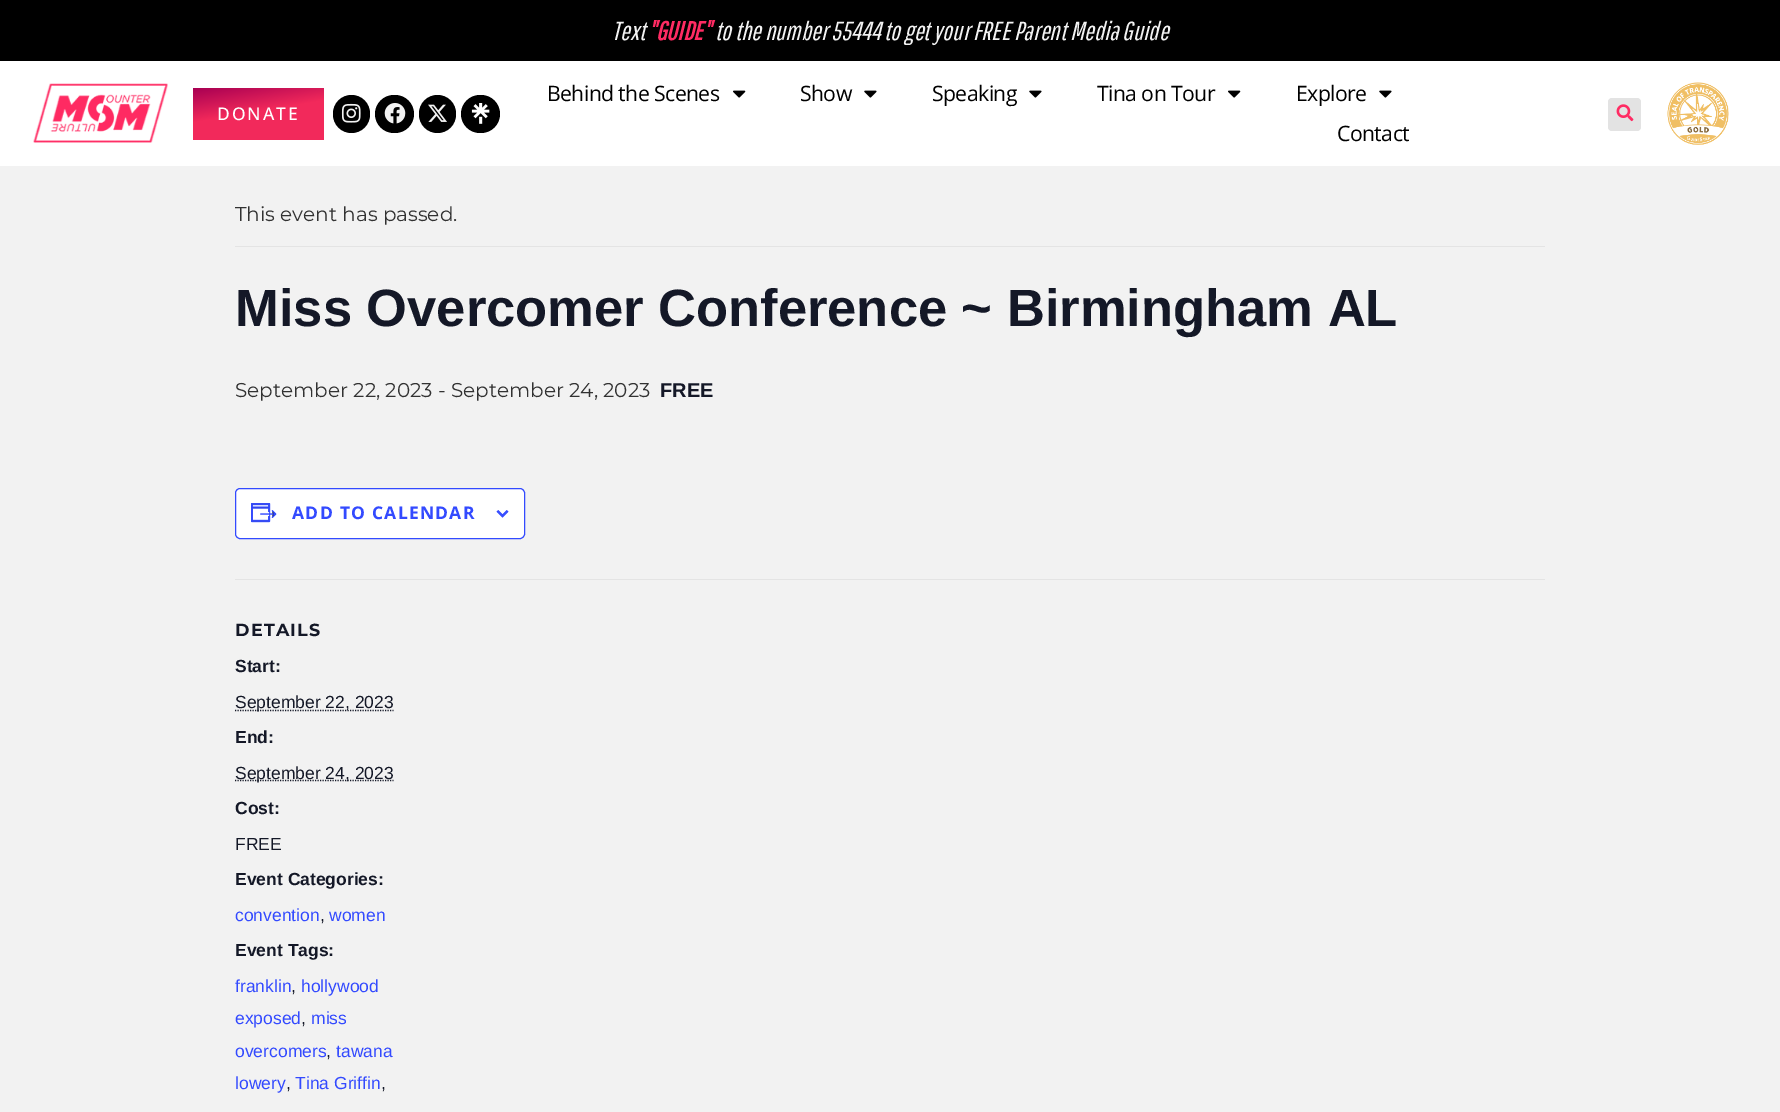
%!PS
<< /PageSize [1780 1112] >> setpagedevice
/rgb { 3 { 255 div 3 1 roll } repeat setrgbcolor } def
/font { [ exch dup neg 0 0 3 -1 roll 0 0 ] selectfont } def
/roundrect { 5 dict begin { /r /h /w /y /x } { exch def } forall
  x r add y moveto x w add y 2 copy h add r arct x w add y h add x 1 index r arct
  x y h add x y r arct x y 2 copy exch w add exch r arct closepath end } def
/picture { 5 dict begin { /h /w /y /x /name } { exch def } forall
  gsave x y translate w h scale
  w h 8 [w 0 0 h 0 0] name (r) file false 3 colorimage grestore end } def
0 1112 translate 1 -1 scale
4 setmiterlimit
242 242 242 rgb
0 0 1780 1112 rectfill
0 0 0 rgb
0 0 1780 61 rectfill
255 255 255 rgb
0 61 1780 105 rectfill
(img/1.rgb) 33 83 135 60 picture
gsave 193 88 moveto 324 88 lineto 324 140 lineto 193 140 lineto closepath clip newpath
<< /ShadingType 2 /ColorSpace /DeviceRGB /Coords [252 78 264 149] /Extend [true true] /Function << /FunctionType 3 /Domain [0 1] /Functions [<< /FunctionType 2 /Domain [0 1] /C0 [0.659 0 0.325] /C1 [0.949 0.161 0.357] /N 1 >> << /FunctionType 2 /Domain [0 1] /C0 [0.949 0.161 0.357] /C1 [0.949 0.161 0.357] /N 1 >>] /Bounds [0.47] /Encode [0 1 0 1] >> >> shfill grestore
0 0 0 rgb
333 95 37 38 18.5 roundrect fill
(img/2.rgb) 341 103 20 20 picture
375 95 39 38 19 roundrect fill
(img/3.rgb) 384 103 22 21 picture
419 95 37 38 18.5 roundrect fill
(img/4.rgb) 428 104 19 18 picture
461 95 39 38 19 roundrect fill
(img/5.rgb) 471 103 19 21 picture
(img/6.rgb) 733 90 13 8 picture
(img/7.rgb) 864 90 13 8 picture
(img/7.rgb) 1029 90 13 8 picture
(img/6.rgb) 1228 90 13 8 picture
(img/7.rgb) 1379 90 13 8 picture
227 227 227 rgb
1608 98 33 33 4 roundrect fill
(img/8.rgb) 1616 104 18 18 picture
(img/9.rgb) 1667 82 62 63 picture
228 228 228 rgb
235 246 1310 1 rectfill
255 255 255 rgb
235.5 488.5 289 50 4.5 roundrect gsave fill grestore
51 74 255 rgb
stroke
(img/10.rgb) 251 503 26 20 picture
(img/11.rgb) 496 510 13 8 picture
228 228 228 rgb
235 579 1310 1 rectfill
20 24 39 rgb
1.2 setlinewidth
[1.25 1.25] 0 setdash
235 710.5 moveto 393.5 710.5 lineto stroke
235 780.5 moveto 393.5 780.5 lineto stroke
/PathwayGothicOne-Italic 26 font
242 242 242 rgb
612 40 moveto (Text) show
/PathwayGothicOne-BoldItalic 26 font
255 43 99 rgb
648 40 moveto ("GUIDE") show
/PathwayGothicOne-Italic 26 font
242 242 242 rgb
715 40 moveto (to the number 55444 to get your FREE Parent Media Guide) show
/OpenSans-Medium 17.5 font
255 255 255 rgb
217 120 moveto 2 0 (DONATE) ashow
/OpenSans-Regular 21.25 font
0 0 0 rgb
547 101 moveto -0.6 0 (Behind the Scenes) ashow
800 101 moveto -0.6 0 (Show) ashow
932 101 moveto -0.6 0 (Speaking) ashow
1097 101 moveto -0.6 0 (Tina on Tour) ashow
1296 101 moveto -0.6 0 (Explore) ashow
1337 141 moveto -0.6 0 (Contact) ashow
/Montserrat-Regular 20 font
50 50 50 rgb
235 221 moveto (This event has passed.) show
/LiberationSans-Bold 52.5 font
20 24 39 rgb
235 326 moveto (Miss Overcomer Conference ~ Birmingham AL) show
/Montserrat-Regular 20 font
50 50 50 rgb
235 397 moveto (September 22, 2023 - September 24, 2023) show
/LiberationSans-Bold 20 font
20 24 39 rgb
660 397 moveto (FREE) show
/OpenSans-Bold 17.5 font
51 74 255 rgb
292 519 moveto 1.25 0 (ADD TO CALENDAR) ashow
/Montserrat-Bold 17.5 font
20 24 39 rgb
235 636 moveto 1.25 0 (DETAILS) ashow
/LiberationSans-Bold 17.5 font
235 672 moveto (Start:) show
/LiberationSans-Regular 17.5 font
235 708 moveto (September 22, 2023) show
/LiberationSans-Bold 17.5 font
235 743 moveto (End:) show
/LiberationSans-Regular 17.5 font
235 779 moveto (September 24, 2023) show
/LiberationSans-Bold 17.5 font
235 814 moveto (Cost:) show
/LiberationSans-Regular 17.5 font
235 850 moveto (FREE) show
/LiberationSans-Bold 17.5 font
235 885 moveto (Event Categories:) show
/LiberationSans-Regular 17.5 font
51 74 255 rgb
235 921 moveto (convention) show
20 24 39 rgb
320 921 moveto (,) show
51 74 255 rgb
329 921 moveto (women) show
/LiberationSans-Bold 17.5 font
20 24 39 rgb
235 956 moveto (Event Tags:) show
/LiberationSans-Regular 17.5 font
51 74 255 rgb
235 992 moveto (franklin) show
20 24 39 rgb
291 992 moveto (,) show
51 74 255 rgb
301 992 moveto (hollywood) show
235 1024 moveto (exposed) show
20 24 39 rgb
301 1024 moveto (,) show
51 74 255 rgb
311 1024 moveto (miss) show
235 1057 moveto (overcomers) show
20 24 39 rgb
326 1057 moveto (,) show
51 74 255 rgb
336 1057 moveto (tawana) show
235 1089 moveto (lowery) show
20 24 39 rgb
286 1089 moveto (,) show
51 74 255 rgb
295 1089 moveto (Tina Griffin) show
20 24 39 rgb
381 1089 moveto (,) show
showpage
